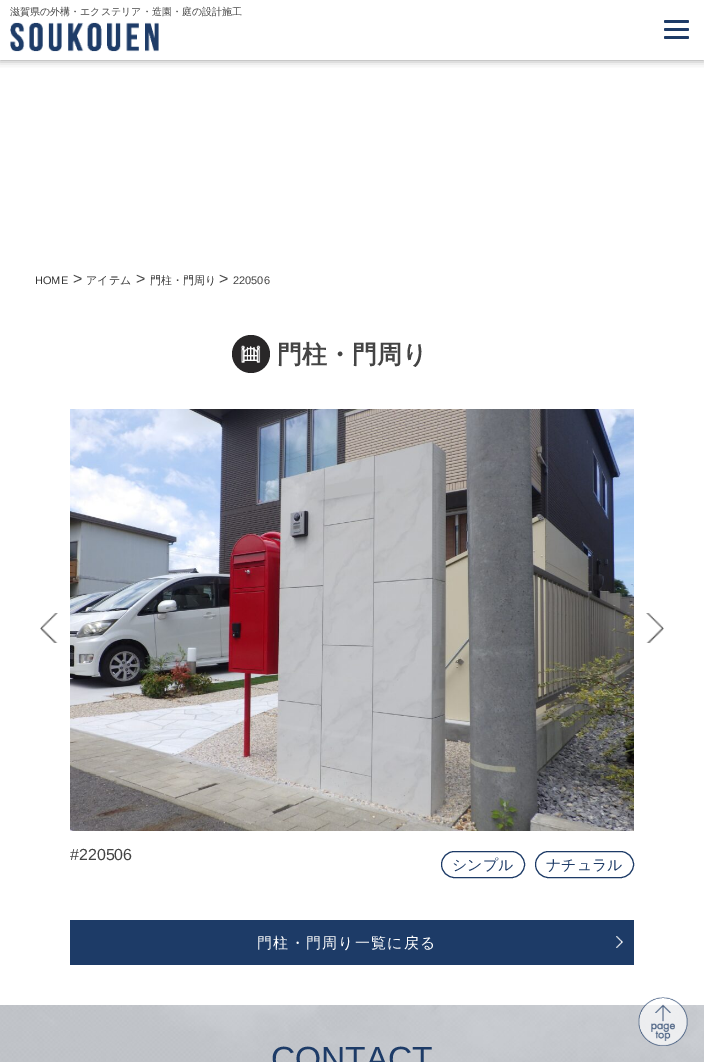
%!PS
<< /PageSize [704 1062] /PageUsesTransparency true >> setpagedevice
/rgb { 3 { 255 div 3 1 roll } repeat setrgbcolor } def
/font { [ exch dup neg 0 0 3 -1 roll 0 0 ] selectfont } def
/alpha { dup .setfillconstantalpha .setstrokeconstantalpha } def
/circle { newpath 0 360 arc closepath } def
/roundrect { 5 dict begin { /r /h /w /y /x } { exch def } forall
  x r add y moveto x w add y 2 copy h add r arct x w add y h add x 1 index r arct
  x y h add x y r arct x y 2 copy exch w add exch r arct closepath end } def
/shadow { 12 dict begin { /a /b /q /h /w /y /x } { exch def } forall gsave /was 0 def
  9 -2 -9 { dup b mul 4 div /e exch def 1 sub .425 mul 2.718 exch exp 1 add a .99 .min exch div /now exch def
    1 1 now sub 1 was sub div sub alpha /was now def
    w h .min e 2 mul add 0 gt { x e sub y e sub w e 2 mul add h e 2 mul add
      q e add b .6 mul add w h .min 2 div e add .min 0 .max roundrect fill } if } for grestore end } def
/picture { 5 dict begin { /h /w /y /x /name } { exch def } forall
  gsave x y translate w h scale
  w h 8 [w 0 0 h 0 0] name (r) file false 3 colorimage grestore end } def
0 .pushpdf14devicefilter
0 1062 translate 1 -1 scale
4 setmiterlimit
255 255 255 rgb
0 0 704 1062 rectfill
gsave
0 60 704 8 rectclip
142 142 142 rgb
0 0 704 60 0 4 1 shadow
grestore
(img/1.rgb) 10 22 149 30 picture
29 59 103 rgb
664 20 25 3 1.5 roundrect fill
664 28 25 3 1.5 roundrect fill
664 36 25 3 1.5 roundrect fill
41 39 40 rgb
251 354 19 circle fill
(img/2.rgb) 241 345 20 18 picture
(img/3.rgb) 70 409 564 422 picture
(img/4.rgb) 40 613 18 30 picture
(img/5.rgb) 646 613 18 30 picture
29 59 103 rgb
441.5 851.5 83 26 13 roundrect stroke
535.5 851.5 98 26 13 roundrect stroke
70 920 564 45 rectfill
(img/6.rgb) 616 936 7 12 picture
(img/8.rgb) 0 1005 704 57 picture
(img/7.rgb) 638 997 50 49 picture
/WenQuanYiZenHei-Medium 10 font
68 68 68 rgb
10 15 moveto (滋賀県の外構・エクステリア・造園・庭の設計施工) show
/LiberationSans-Regular 11 font
51 51 51 rgb
35 284 moveto (HOME) show
/LiberationSans-Regular 16 font
68 68 68 rgb
73 284 moveto (>) show
/WenQuanYiZenHei-Medium 11 font
51 51 51 rgb
86 284 moveto (アイテム) show
/LiberationSans-Regular 16 font
68 68 68 rgb
136 284 moveto (>) show
/WenQuanYiZenHei-Medium 11 font
51 51 51 rgb
150 284 moveto (門柱・門周り) show
/LiberationSans-Regular 16 font
68 68 68 rgb
219 284 moveto (>) show
/LiberationSans-Regular 11 font
233 284 moveto (220506) show
/WenQuanYiZenHei-Bold 25 font
277 363 moveto (門柱・門周り) show
/LiberationSans-Regular 16 font
70 860 moveto (#220506) show
/WenQuanYiZenHei-Medium 15 font
29 59 103 rgb
452 870 moveto (シンプル) show
546 870 moveto (ナチュラル) show
255 255 255 rgb
257 948 moveto 1.25 0 (門柱・門周り一覧に戻る) ashow
/LiberationSans-Regular 33.5 font
29 59 103 rgb
271 1070 moveto (CONTACT) show
.poppdf14devicefilter showpage
